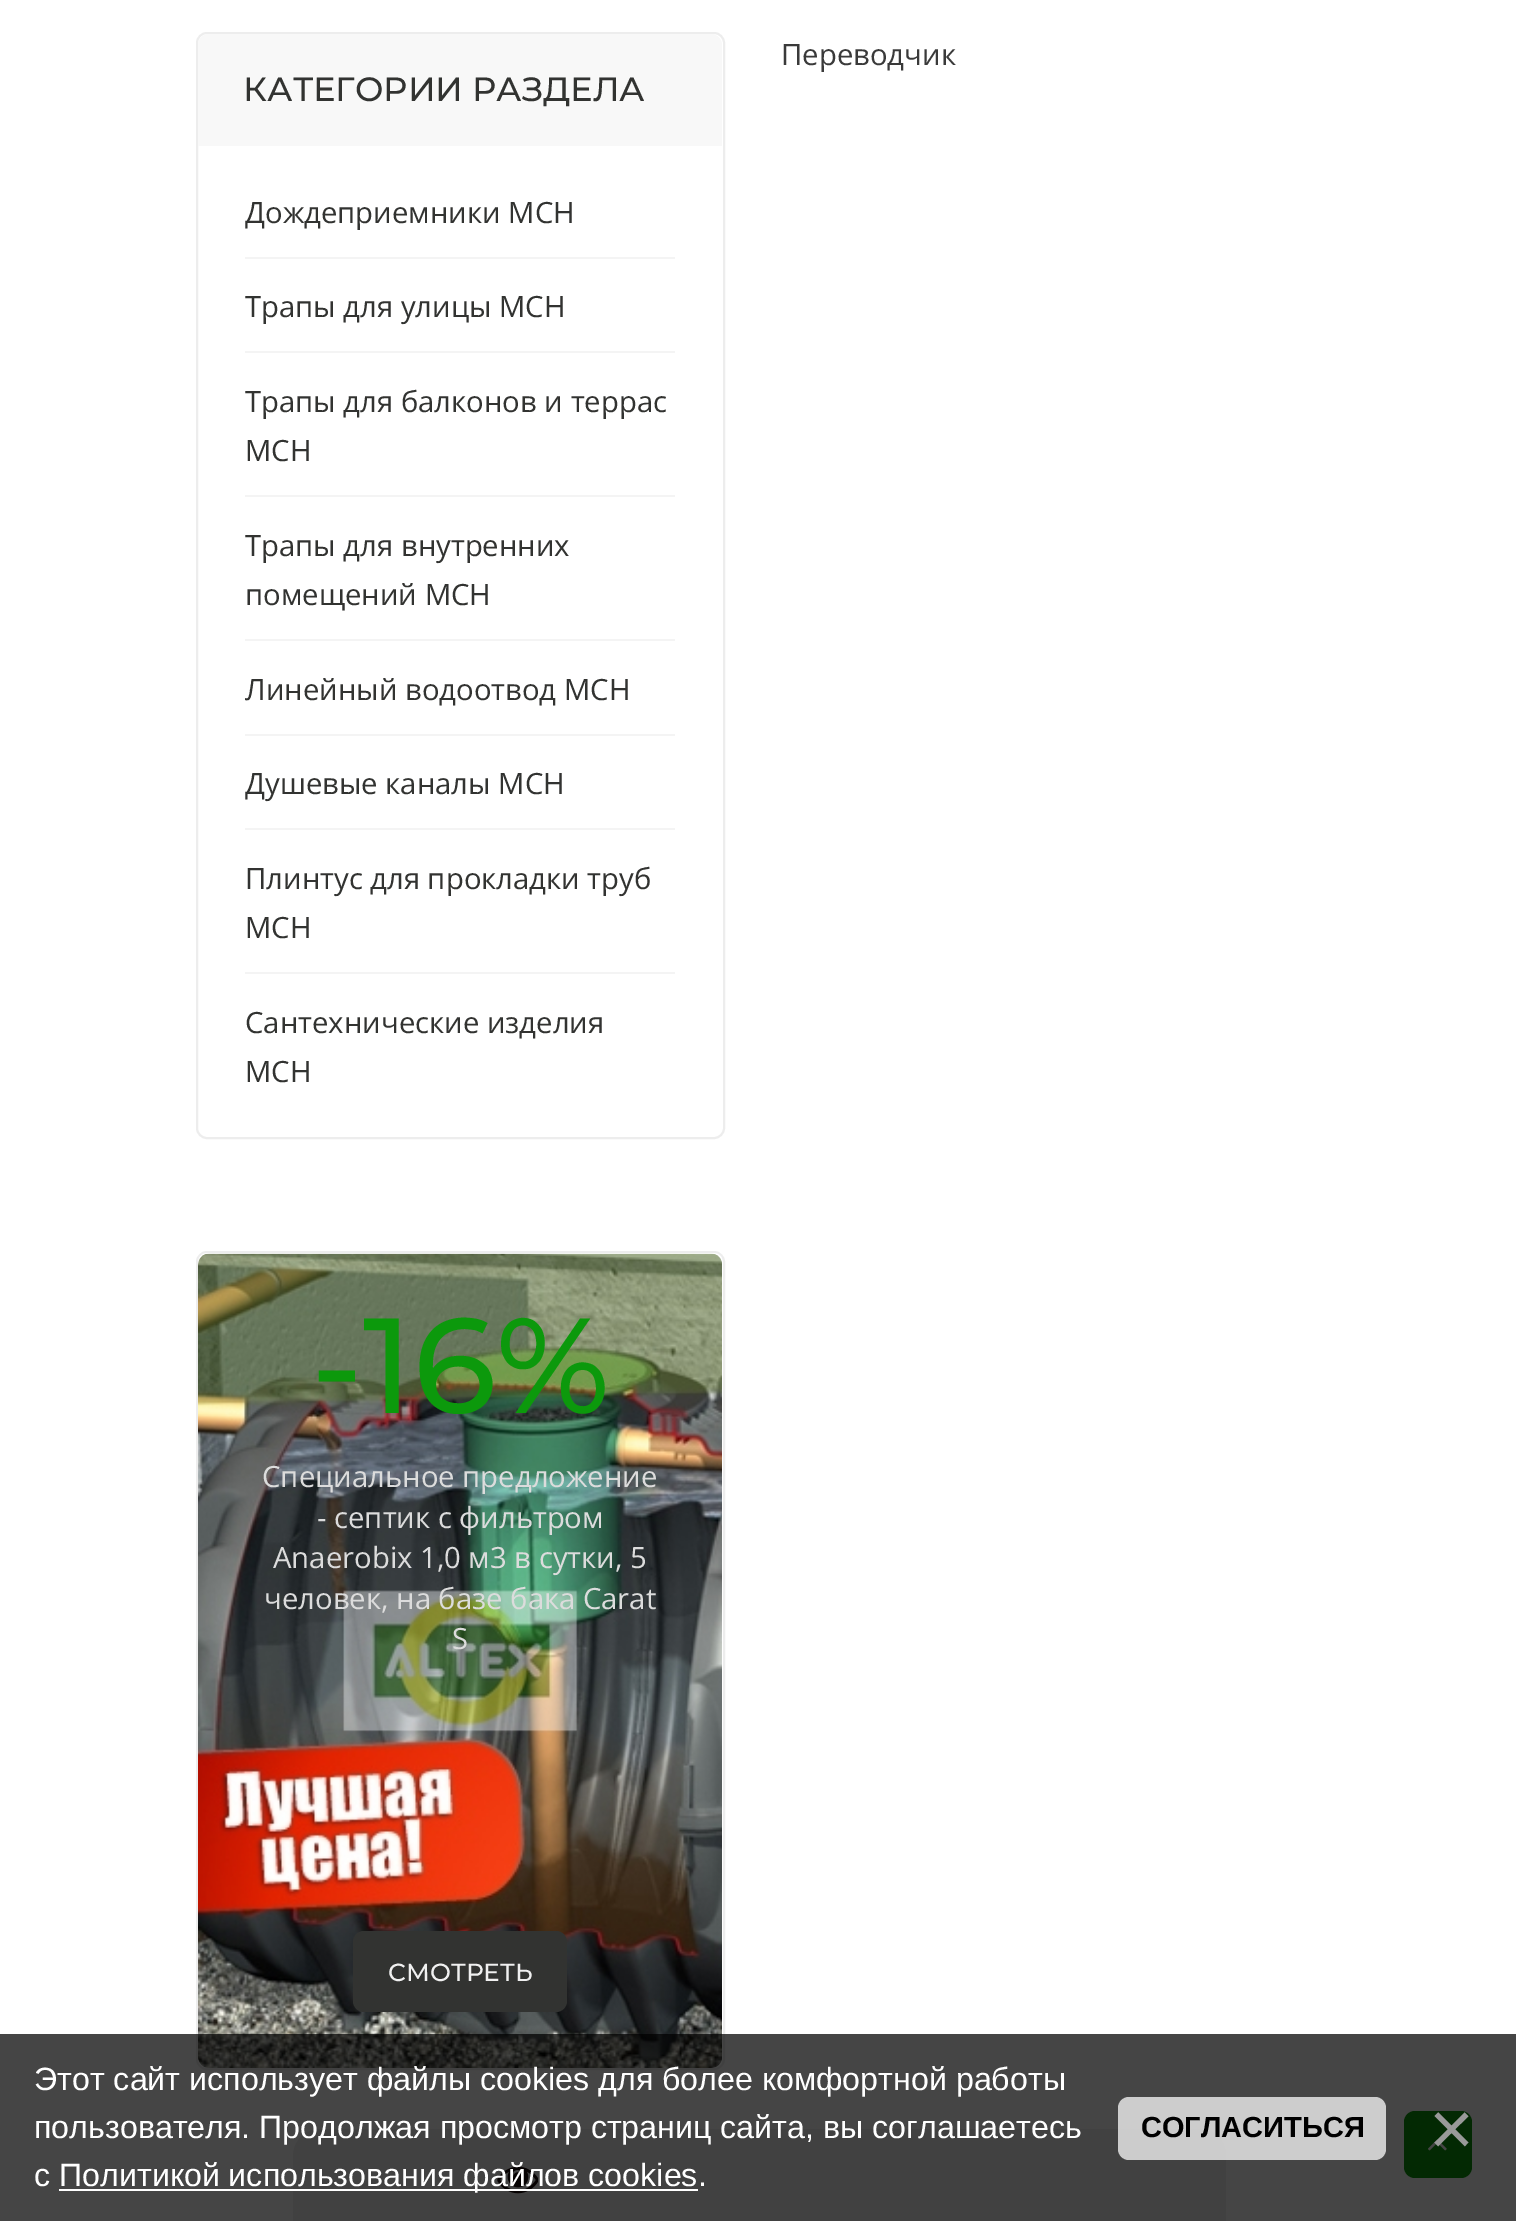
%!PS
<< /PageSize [1516 2221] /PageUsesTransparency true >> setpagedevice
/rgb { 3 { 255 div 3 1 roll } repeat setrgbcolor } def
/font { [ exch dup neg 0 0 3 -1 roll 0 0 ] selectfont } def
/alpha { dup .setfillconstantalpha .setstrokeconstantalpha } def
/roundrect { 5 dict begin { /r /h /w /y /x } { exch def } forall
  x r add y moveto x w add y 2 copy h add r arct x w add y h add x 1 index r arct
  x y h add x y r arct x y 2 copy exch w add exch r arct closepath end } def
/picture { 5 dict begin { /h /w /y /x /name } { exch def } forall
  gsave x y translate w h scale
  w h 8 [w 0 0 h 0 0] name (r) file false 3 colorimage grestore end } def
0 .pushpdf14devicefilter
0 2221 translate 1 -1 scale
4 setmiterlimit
255 255 255 rgb
0 0 1516 2221 rectfill
237 237 237 rgb
2 setlinewidth
197 33 527 1105 10 roundrect stroke
248 248 248 rgb
209 34 moveto 711 34 lineto 717 34 722 39 722 45 curveto 722 146 lineto 198 146 lineto 198 45 lineto 198 39 203 34 209 34 curveto closepath fill
[
  [245 257 430 2 244 244 244]
  [245 351 430 2 244 244 244]
  [245 495 430 2 244 244 244]
  [245 639 430 2 244 244 244]
  [245 734 430 2 244 244 244]
  [245 828 430 2 244 244 244]
  [245 972 430 2 244 244 244]
] { aload pop rgb rectfill } forall
237 237 237 rgb
197 1252 527 817 10 roundrect stroke
(img/1.rgb) 198 1253 524 815 picture
50 51 49 rgb
353 1931 214 81 11 roundrect fill
242 242 242 rgb
320 2129 moveto 1199 2129 lineto 1214 2129 1226 2141 1226 2156 curveto 1226 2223 lineto 293 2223 lineto 293 2156 lineto 293 2141 305 2129 320 2129 curveto closepath fill
(img/2.rgb) 497 2166 41 28 picture
12 153 12 rgb
1404 2111 68 67 11 roundrect fill
(img/3.rgb) 1428 2139 19 12 picture
0.73 alpha
0 0 0 rgb
0 2034 1516 187 rectfill
1 alpha
255 255 255 rgb
59 2189 639 2 rectfill
0.73 alpha
1118 2097 268 63 11 roundrect fill
/OpenSans-Regular 29.25 font
1 alpha
58 58 58 rgb
781 65 moveto (Переводчик) show
/Montserrat-Medium 33.75 font
50 51 49 rgb
243 101 moveto (КАТЕГОРИИ РАЗДЕЛА) show
/OpenSans-Regular 29.25 font
[
  [(Дождеприемники MCH) 245 223]
  [(Трапы для улицы MCH) 245 317]
  [(Трапы для балконов и террас) 245 412]
  [(MCH) 245 461]
  [(Трапы для внутренних) 245 556]
  [(помещений MCH) 245 605]
  [(Линейный водоотвод MCH) 245 700]
  [(Душевые каналы MCH) 245 794]
  [(Плинтус для прокладки труб) 245 889]
  [(MCH) 245 938]
  [(Сантехнические изделия) 245 1033]
  [(MCH) 245 1082]
] { aload pop moveto show } forall
/Montserrat-Medium 135 font
12 153 12 rgb
311 1413 moveto (-16%) show
/OpenSans-Regular 29.25 font
220 220 220 rgb
[
  [(Специальное предложение) 262 1487]
  [(- септик с фильтром) 317 1528]
  [(Anaerobix 1,0 м3 в сутки, 5) 273 1568]
  [(человек, на базе бака Carat) 264 1609]
  [(S) 452 1649]
] { aload pop moveto show } forall
/Montserrat-Medium 24.75 font
240 240 240 rgb
388 1981 moveto (СМОТРЕТЬ) show
/LiberationSans-Regular 32.2 font
255 255 255 rgb
[
  [(Этот сайт использует файлы cookies для более комфортной работы) 34 2090]
  [(пользователя. Продолжая просмотр страниц сайта, вы соглашаетесь) 34 2138]
  [(с) 34 2186]
  [(Политикой использования файлов cookies.) 59 2186]
] { aload pop moveto show } forall
/LiberationSans-Bold 29 font
0 0 0 rgb
1141 2137 moveto (СОГЛАСИТЬСЯ) show
/LiberationSans-Regular 77 font
153 153 153 rgb
1429 2155 moveto (×) show
.poppdf14devicefilter showpage
